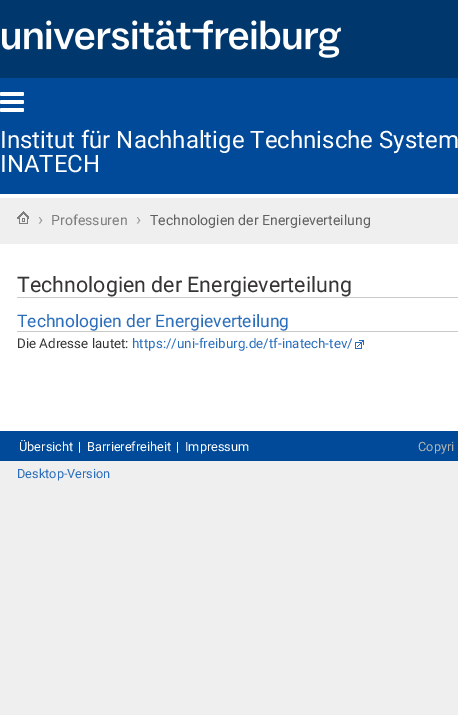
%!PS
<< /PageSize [458 715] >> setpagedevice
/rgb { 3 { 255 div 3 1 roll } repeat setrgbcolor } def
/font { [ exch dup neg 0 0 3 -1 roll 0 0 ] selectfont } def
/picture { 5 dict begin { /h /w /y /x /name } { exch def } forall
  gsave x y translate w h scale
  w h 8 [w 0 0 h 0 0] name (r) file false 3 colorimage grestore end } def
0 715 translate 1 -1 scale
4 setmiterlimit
239 239 239 rgb
0 0 458 715 rectfill
[
  [0 78 458 116 0 74 153]
  [0 194 458 4 255 255 255]
  [0 0 458 78 0 55 109]
] { aload pop rgb rectfill } forall
(img/1.rgb) 2 20 339 38 picture
(img/2.rgb) 0 92 24 20 picture
255 255 255 rgb
0 244 458 187 rectfill
(img/3.rgb) 17 211 12 13 picture
201 202 200 rgb
17 297 441 1 rectfill
17 331 441 1 rectfill
(img/4.rgb) 355 340 9 9 picture
0 74 153 rgb
0 431 458 30 rectfill
/Roboto-Regular 24 font
255 255 255 rgb
0 148 moveto (Institut für Nachhaltige Technische System) show
0 172 moveto (INATECH) show
/Roboto-Regular 17 font
153 153 153 rgb
38 225 moveto (›) show
/Roboto-Regular 14.1 font
128 127 127 rgb
51 225 moveto (Professuren) show
/Roboto-Regular 17 font
153 153 153 rgb
136 225 moveto (›) show
/Roboto-Regular 14.1 font
96 96 96 rgb
150 225 moveto (Technologien der Energieverteilung) show
/Roboto-Regular 21.4 font
54 53 52 rgb
17 292 moveto (Technologien der Energieverteilung) show
/Roboto-Regular 17.4 font
42 110 187 rgb
17 327 moveto (Technologien der Energieverteilung) show
/Roboto-Regular 13.4 font
54 53 52 rgb
17 348 moveto (Die Adresse lautet:) show
42 110 187 rgb
132 348 moveto (https://uni-freiburg.de/tf-inatech-tev/) show
/Roboto-Regular 12.75 font
255 255 255 rgb
[
  [(Übersicht) 19 451]
  [(|) 78 451]
  [(Barrierefreiheit) 87 451]
  [(|) 176 451]
  [(Impressum) 185 451]
] { aload pop moveto show } forall
178 180 179 rgb
418 451 moveto (Copyri) show
42 110 187 rgb
17 478 moveto (Desktop-Version) show
showpage
